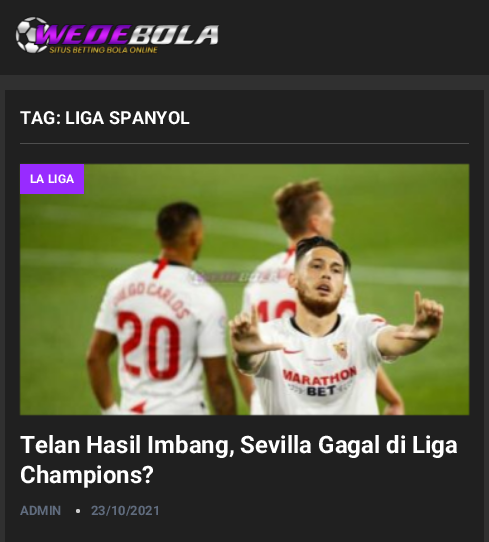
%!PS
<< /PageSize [489 542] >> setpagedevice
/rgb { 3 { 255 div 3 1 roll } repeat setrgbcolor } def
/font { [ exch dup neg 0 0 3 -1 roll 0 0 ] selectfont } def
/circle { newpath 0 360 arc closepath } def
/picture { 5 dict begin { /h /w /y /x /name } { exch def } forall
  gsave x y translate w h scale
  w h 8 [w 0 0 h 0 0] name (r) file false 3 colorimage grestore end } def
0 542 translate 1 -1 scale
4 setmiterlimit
48 48 48 rgb
0 0 489 542 rectfill
32 32 32 rgb
0 0 489 75 rectfill
(img/1.rgb) 15 16 205 38 picture
5 90 479 452 rectfill
78 78 78 rgb
20 143 449 1 rectfill
(img/2.rgb) 19 163 451 253 picture
152 43 255 rgb
20 164 64 30 rectfill
204 204 204 rgb
78 511 2 circle fill
/Roboto-Bold 18 font
255 255 255 rgb
20 124 moveto (TAG: LIGA SPANYOL) show
/Roboto-Bold 12 font
30 183 moveto (LA LIGA) show
/Roboto-Bold 24 font
20 453 moveto (Telan Hasil Imbang, Sevilla Gagal di Liga) show
20 483 moveto (Champions?) show
/Roboto-Bold 13 font
96 108 126 rgb
20 515 moveto (ADMIN) show
91 515 moveto (23/10/2021) show
showpage
